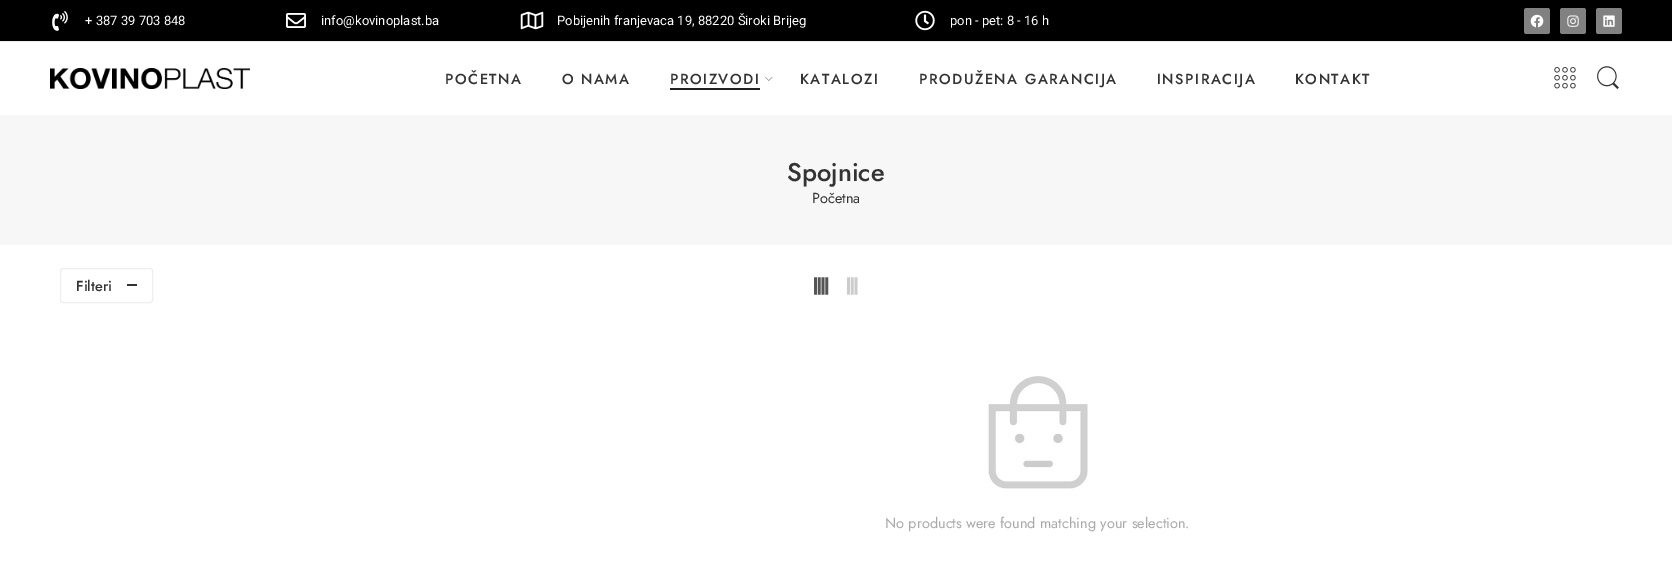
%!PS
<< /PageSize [1672 583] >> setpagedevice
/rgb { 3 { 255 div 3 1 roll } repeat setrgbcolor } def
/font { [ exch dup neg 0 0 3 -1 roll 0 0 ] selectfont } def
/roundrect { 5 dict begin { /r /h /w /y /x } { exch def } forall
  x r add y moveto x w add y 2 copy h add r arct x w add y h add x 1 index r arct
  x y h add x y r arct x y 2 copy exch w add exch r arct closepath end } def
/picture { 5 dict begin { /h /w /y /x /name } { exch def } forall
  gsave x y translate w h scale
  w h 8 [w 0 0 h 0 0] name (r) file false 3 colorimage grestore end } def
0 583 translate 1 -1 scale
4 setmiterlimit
255 255 255 rgb
0 0 1672 583 rectfill
0 0 0 rgb
0 0 1672 41 rectfill
236 236 236 rgb
0 41 1672 1 rectfill
(img/1.rgb) 52 11 16 20 picture
(img/2.rgb) 286 13 20 15 picture
(img/3.rgb) 520 11 24 19 picture
(img/4.rgb) 915 10 20 21 picture
129 129 129 rgb
1524 8 26 26 2.5 roundrect fill
(img/5.rgb) 1530 14 14 14 picture
1560 8 26 26 2.5 roundrect fill
(img/6.rgb) 1567 15 12 12 picture
1596 8 26 26 2.5 roundrect fill
(img/7.rgb) 1603 15 12 12 picture
(img/8.rgb) 50 68 200 21 picture
(img/9.rgb) 765 77 8 4 picture
33 33 33 rgb
670 88 90 2 rectfill
(img/10.rgb) 1554 67 22 22 picture
(img/11.rgb) 1597 66 22 24 picture
247 247 247 rgb
0 115 1672 130 rectfill
238 238 238 rgb
60.5 268.5 92 34 2.5 roundrect stroke
51 51 51 rgb
127 284 10 2 rectfill
(img/12.rgb) 988 376 100 113 picture
/Roboto-Regular 13 font
255 255 255 rgb
[
  [(+ 387 39 703 848) 85 25]
  [(info@kovinoplast.ba) 321 25]
  [(Pobijenih franjevaca 19, 88220 Široki Brijeg) 557 25]
  [(pon - pet: 8 - 16 h) 950 25]
] { aload pop moveto show } forall
/Jost-Medium 14.5 font
51 51 51 rgb
445 84 moveto 1.5 0 (POČETNA) ashow
562 84 moveto 1.5 0 (O NAMA) ashow
670 84 moveto 1.5 0 (PROIZVODI) ashow
800 84 moveto 1.5 0 (KATALOZI) ashow
919 84 moveto 1.5 0 (PRODUŽENA GARANCIJA) ashow
1157 84 moveto 1.5 0 (INSPIRACIJA) ashow
1295 84 moveto 1.5 0 (KONTAKT) ashow
/Jost-Medium 25.5 font
787 181 moveto (Spojnice) show
/Jost-Regular 14.5 font
812 203 moveto (Početna) show
/Jost-Medium 14.5 font
76 291 moveto (Filteri) show
/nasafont-Regular 22 font
85 85 85 rgb
810 297 moveto (9) show
204 204 204 rgb
841 297 moveto (8) show
/Jost-Regular 14.5 font
170 170 170 rgb
885 528 moveto (No products were found matching your selection.) show
showpage
